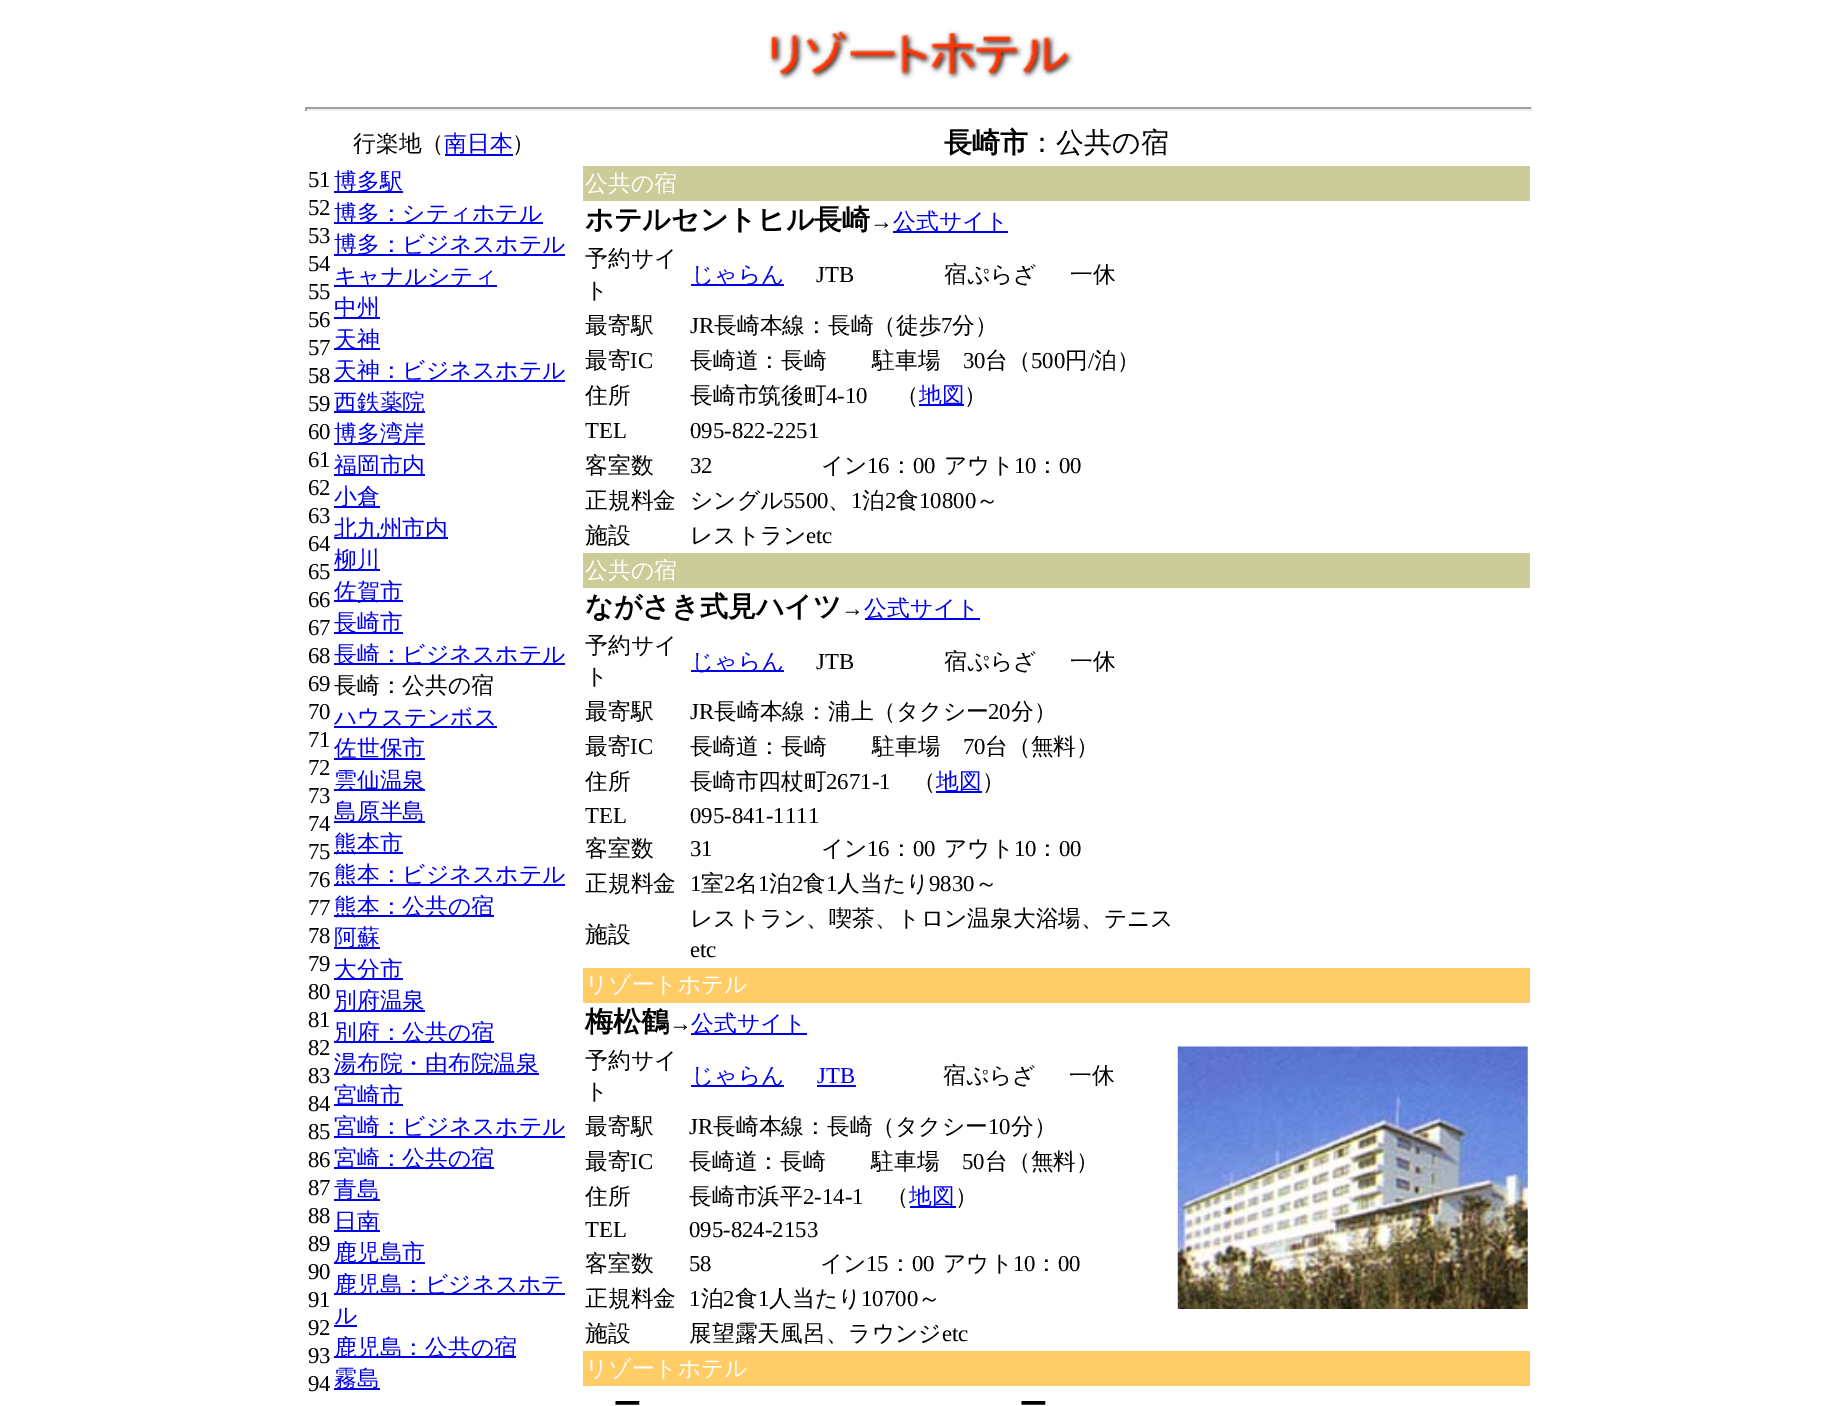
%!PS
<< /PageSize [1836 1406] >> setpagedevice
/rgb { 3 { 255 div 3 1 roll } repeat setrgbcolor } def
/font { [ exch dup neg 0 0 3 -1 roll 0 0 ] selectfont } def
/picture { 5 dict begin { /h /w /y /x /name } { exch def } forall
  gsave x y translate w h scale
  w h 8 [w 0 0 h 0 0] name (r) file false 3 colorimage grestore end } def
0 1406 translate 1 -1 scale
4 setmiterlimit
255 255 255 rgb
0 0 1836 1406 rectfill
(img/1.rgb) 768 29 306 52 picture
[
  [305 107 1228 2 159 159 159]
  [1531 107 2 4 238 238 238]
  [305 109 1228 2 238 238 238]
  [305 107 2 4 159 159 159]
  [445 154 68 2 0 0 238]
  [334 191 69 2 0 0 238]
  [334 222 209 2 0 0 238]
  [334 254 231 2 0 0 238]
  [334 285 163 2 0 0 238]
  [334 317 46 2 0 0 238]
  [334 348 46 2 0 0 238]
  [334 380 231 2 0 0 238]
  [334 411 91 2 0 0 238]
  [334 443 91 2 0 0 238]
  [334 474 91 2 0 0 238]
  [334 506 46 2 0 0 238]
  [334 537 114 2 0 0 238]
  [334 569 46 2 0 0 238]
  [334 600 69 2 0 0 238]
  [334 632 69 2 0 0 238]
  [334 663 231 2 0 0 238]
  [334 726 163 2 0 0 238]
  [334 758 91 2 0 0 238]
  [334 789 91 2 0 0 238]
  [334 821 91 2 0 0 238]
  [334 852 69 2 0 0 238]
  [334 884 231 2 0 0 238]
  [334 915 160 2 0 0 238]
  [334 947 46 2 0 0 238]
  [334 978 69 2 0 0 238]
  [334 1010 91 2 0 0 238]
  [334 1041 160 2 0 0 238]
  [334 1073 205 2 0 0 238]
  [334 1104 69 2 0 0 238]
  [334 1136 231 2 0 0 238]
  [334 1167 160 2 0 0 238]
  [334 1199 46 2 0 0 238]
  [334 1230 46 2 0 0 238]
  [334 1262 91 2 0 0 238]
  [334 1293 231 2 0 0 238]
  [334 1325 23 2 0 0 238]
  [334 1356 182 2 0 0 238]
  [334 1388 46 2 0 0 238]
  [583 166 947 35 204 204 153]
  [893 231 115 2 0 0 238]
  [691 284 93 2 0 0 238]
  [919 404 45 2 0 0 238]
  [583 553 947 35 204 204 153]
  [865 618 115 2 0 0 238]
  [691 670 93 2 0 0 238]
  [936 791 46 2 0 0 238]
  [583 968 947 35 255 204 102]
  [691 1033 116 2 0 0 238]
] { aload pop rgb rectfill } forall
(img/2.rgb) 1177 1046 351 263 picture
[
  [691 1085 93 2 0 0 238]
  [817 1085 39 2 0 0 238]
  [910 1206 46 2 0 0 238]
  [583 1351 947 35 255 204 102]
] { aload pop rgb rectfill } forall
/WenQuanYiZenHei-Medium 22.75 font
0 0 0 rgb
353 151 moveto (行楽地（) show
0 0 238 rgb
444 151 moveto (南日本) show
0 0 0 rgb
512 151 moveto (）) show
/WenQuanYiZenHei-Bold 28 font
944 152 moveto (長崎市) show
/WenQuanYiZenHei-Medium 28 font
1028 152 moveto (：公共の宿) show
/LiberationSerif-Regular 22.75 font
[
  [(51) 308 187]
  [(52) 308 215]
  [(53) 308 243]
  [(54) 308 271]
  [(55) 308 299]
  [(56) 308 327]
  [(57) 308 355]
  [(58) 308 383]
  [(59) 308 411]
  [(60) 308 439]
  [(61) 308 467]
  [(62) 308 495]
  [(63) 308 523]
  [(64) 308 551]
  [(65) 308 579]
  [(66) 308 607]
  [(67) 308 635]
  [(68) 308 663]
  [(69) 308 691]
  [(70) 308 719]
  [(71) 308 747]
  [(72) 308 775]
  [(73) 308 803]
  [(74) 308 831]
  [(75) 308 859]
  [(76) 308 887]
  [(77) 308 915]
  [(78) 308 943]
  [(79) 308 971]
  [(80) 308 999]
  [(81) 308 1027]
  [(82) 308 1055]
  [(83) 308 1083]
  [(84) 308 1111]
  [(85) 308 1139]
  [(86) 308 1167]
  [(87) 308 1195]
  [(88) 308 1223]
  [(89) 308 1251]
  [(90) 308 1279]
  [(91) 308 1307]
  [(92) 308 1335]
  [(93) 308 1363]
  [(94) 308 1391]
] { aload pop moveto show } forall
/WenQuanYiZenHei-Medium 22.75 font
0 0 238 rgb
[
  [(博多駅) 334 189]
  [(博多：シティホテル) 334 221]
  [(博多：ビジネスホテル) 334 252]
  [(キャナルシティ) 334 284]
  [(中州) 334 315]
  [(天神) 334 347]
  [(天神：ビジネスホテル) 334 378]
  [(西鉄薬院) 334 410]
  [(博多湾岸) 334 441]
  [(福岡市内) 334 473]
  [(小倉) 334 504]
  [(北九州市内) 334 536]
  [(柳川) 334 567]
  [(佐賀市) 334 599]
  [(長崎市) 334 630]
  [(長崎：ビジネスホテル) 334 662]
] { aload pop moveto show } forall
0 0 0 rgb
334 693 moveto (長崎：公共の宿) show
0 0 238 rgb
[
  [(ハウステンボス) 334 725]
  [(佐世保市) 334 756]
  [(雲仙温泉) 334 788]
  [(島原半島) 334 819]
  [(熊本市) 334 851]
  [(熊本：ビジネスホテル) 334 882]
  [(熊本：公共の宿) 334 914]
  [(阿蘇) 334 945]
  [(大分市) 334 977]
  [(別府温泉) 334 1008]
  [(別府：公共の宿) 334 1040]
  [(湯布院・由布院温泉) 334 1071]
  [(宮崎市) 334 1103]
  [(宮崎：ビジネスホテル) 334 1134]
  [(宮崎：公共の宿) 334 1166]
  [(青島) 334 1197]
  [(日南) 334 1229]
  [(鹿児島市) 334 1260]
  [(鹿児島：ビジネスホテ) 334 1292]
  [(ル) 334 1323]
  [(鹿児島：公共の宿) 334 1355]
  [(霧島) 334 1386]
] { aload pop moveto show } forall
255 255 255 rgb
585 191 moveto (公共の宿) show
/WenQuanYiZenHei-Bold 28 font
0 0 0 rgb
585 229 moveto (ホテルセントヒル長崎) show
/LiberationSerif-Regular 22.75 font
870 229 moveto (→) show
/WenQuanYiZenHei-Medium 22.75 font
0 0 238 rgb
893 229 moveto (公式サイト) show
0 0 0 rgb
585 266 moveto (予約サイ) show
585 298 moveto (ト) show
0 0 238 rgb
691 282 moveto (じゃらん) show
/LiberationSerif-Regular 22.75 font
0 0 0 rgb
816 282 moveto (JTB) show
/WenQuanYiZenHei-Medium 22.75 font
[
  [(宿ぷらざ) 944 282]
  [(一休) 1070 282]
  [(最寄駅) 585 333]
] { aload pop moveto show } forall
/LiberationSerif-Regular 22.75 font
690 333 moveto (JR) show
/WenQuanYiZenHei-Medium 22.75 font
714 333 moveto (長崎本線：長崎（徒歩) show
/LiberationSerif-Regular 22.75 font
941 333 moveto (7) show
/WenQuanYiZenHei-Medium 22.75 font
952 333 moveto (分）) show
585 368 moveto (最寄) show
/LiberationSerif-Regular 22.75 font
630 368 moveto (IC) show
/WenQuanYiZenHei-Medium 22.75 font
690 368 moveto (長崎道：長崎　　駐車場) show
/LiberationSerif-Regular 22.75 font
963 368 moveto (30) show
/WenQuanYiZenHei-Medium 22.75 font
985 368 moveto (台（) show
/LiberationSerif-Regular 22.75 font
1031 368 moveto (500) show
/WenQuanYiZenHei-Medium 22.75 font
1065 368 moveto (円) show
/LiberationSerif-Regular 22.75 font
1088 368 moveto (/) show
/WenQuanYiZenHei-Medium 22.75 font
[
  [(泊）) 1094 368]
  [(住所) 585 403]
  [(長崎市筑後町) 690 403]
] { aload pop moveto show } forall
/LiberationSerif-Regular 22.75 font
826 403 moveto (4-10) show
/WenQuanYiZenHei-Medium 22.75 font
896 403 moveto (（) show
0 0 238 rgb
919 403 moveto (地図) show
0 0 0 rgb
964 403 moveto (）) show
/LiberationSerif-Regular 22.75 font
585 438 moveto (TEL) show
690 438 moveto (095-822-2251) show
/WenQuanYiZenHei-Medium 22.75 font
585 473 moveto (客室数) show
/LiberationSerif-Regular 22.75 font
690 473 moveto (32) show
/WenQuanYiZenHei-Medium 22.75 font
821 473 moveto (イン) show
/LiberationSerif-Regular 22.75 font
867 473 moveto (16) show
/WenQuanYiZenHei-Medium 22.75 font
890 473 moveto (：) show
/LiberationSerif-Regular 22.75 font
913 473 moveto (00) show
/WenQuanYiZenHei-Medium 22.75 font
944 473 moveto (アウト) show
/LiberationSerif-Regular 22.75 font
1014 473 moveto (10) show
/WenQuanYiZenHei-Medium 22.75 font
1036 473 moveto (：) show
/LiberationSerif-Regular 22.75 font
1059 473 moveto (00) show
/WenQuanYiZenHei-Medium 22.75 font
585 508 moveto (正規料金) show
690 508 moveto (シングル) show
/LiberationSerif-Regular 22.75 font
783 508 moveto (5500) show
851 508 moveto (1) show
/WenQuanYiZenHei-Medium 22.75 font
862 508 moveto (泊) show
/LiberationSerif-Regular 22.75 font
885 508 moveto (2) show
/WenQuanYiZenHei-Medium 22.75 font
896 508 moveto (食) show
/LiberationSerif-Regular 22.75 font
919 508 moveto (10800) show
/WenQuanYiZenHei-Medium 22.75 font
[
  [(～) 976 508]
  [(、) 828 508]
  [(施設) 585 543]
  [(レストラン) 690 543]
] { aload pop moveto show } forall
/LiberationSerif-Regular 22.75 font
806 543 moveto (etc) show
/WenQuanYiZenHei-Medium 22.75 font
255 255 255 rgb
585 578 moveto (公共の宿) show
/WenQuanYiZenHei-Bold 28 font
0 0 0 rgb
585 616 moveto (ながさき式見ハイツ) show
/LiberationSerif-Regular 22.75 font
841 616 moveto (→) show
/WenQuanYiZenHei-Medium 22.75 font
0 0 238 rgb
864 616 moveto (公式サイト) show
0 0 0 rgb
585 653 moveto (予約サイ) show
585 684 moveto (ト) show
0 0 238 rgb
691 669 moveto (じゃらん) show
/LiberationSerif-Regular 22.75 font
0 0 0 rgb
816 669 moveto (JTB) show
/WenQuanYiZenHei-Medium 22.75 font
[
  [(宿ぷらざ) 944 669]
  [(一休) 1070 669]
  [(最寄駅) 585 719]
] { aload pop moveto show } forall
/LiberationSerif-Regular 22.75 font
690 719 moveto (JR) show
/WenQuanYiZenHei-Medium 22.75 font
714 719 moveto (長崎本線：浦上（タクシー) show
/LiberationSerif-Regular 22.75 font
988 719 moveto (20) show
/WenQuanYiZenHei-Medium 22.75 font
1011 719 moveto (分）) show
585 754 moveto (最寄) show
/LiberationSerif-Regular 22.75 font
630 754 moveto (IC) show
/WenQuanYiZenHei-Medium 22.75 font
690 754 moveto (長崎道：長崎　　駐車場) show
/LiberationSerif-Regular 22.75 font
963 754 moveto (70) show
/WenQuanYiZenHei-Medium 22.75 font
[
  [(台（無料）) 985 754]
  [(住所) 585 789]
  [(長崎市四杖町) 690 789]
] { aload pop moveto show } forall
/LiberationSerif-Regular 22.75 font
826 789 moveto (2671-1) show
/WenQuanYiZenHei-Medium 22.75 font
913 789 moveto (（) show
0 0 238 rgb
936 789 moveto (地図) show
0 0 0 rgb
982 789 moveto (）) show
/LiberationSerif-Regular 22.75 font
585 823 moveto (TEL) show
690 823 moveto (095-841-1111) show
/WenQuanYiZenHei-Medium 22.75 font
585 856 moveto (客室数) show
/LiberationSerif-Regular 22.75 font
690 856 moveto (31) show
/WenQuanYiZenHei-Medium 22.75 font
821 856 moveto (イン) show
/LiberationSerif-Regular 22.75 font
867 856 moveto (16) show
/WenQuanYiZenHei-Medium 22.75 font
890 856 moveto (：) show
/LiberationSerif-Regular 22.75 font
913 856 moveto (00) show
/WenQuanYiZenHei-Medium 22.75 font
944 856 moveto (アウト) show
/LiberationSerif-Regular 22.75 font
1014 856 moveto (10) show
/WenQuanYiZenHei-Medium 22.75 font
1036 856 moveto (：) show
/LiberationSerif-Regular 22.75 font
1059 856 moveto (00) show
/WenQuanYiZenHei-Medium 22.75 font
585 891 moveto (正規料金) show
/LiberationSerif-Regular 22.75 font
690 891 moveto (1) show
/WenQuanYiZenHei-Medium 22.75 font
701 891 moveto (室) show
/LiberationSerif-Regular 22.75 font
724 891 moveto (2) show
/WenQuanYiZenHei-Medium 22.75 font
735 891 moveto (名) show
/LiberationSerif-Regular 22.75 font
758 891 moveto (1) show
/WenQuanYiZenHei-Medium 22.75 font
769 891 moveto (泊) show
/LiberationSerif-Regular 22.75 font
792 891 moveto (2) show
/WenQuanYiZenHei-Medium 22.75 font
803 891 moveto (食) show
/LiberationSerif-Regular 22.75 font
826 891 moveto (1) show
/WenQuanYiZenHei-Medium 22.75 font
837 891 moveto (人当たり) show
/LiberationSerif-Regular 22.75 font
929 891 moveto (9830) show
/WenQuanYiZenHei-Medium 22.75 font
[
  [(～) 975 891]
  [(施設) 585 942]
  [(レストラン、喫茶、トロン温泉大浴場、テニス) 690 926]
] { aload pop moveto show } forall
/LiberationSerif-Regular 22.75 font
690 957 moveto (etc) show
/WenQuanYiZenHei-Medium 22.75 font
255 255 255 rgb
585 992 moveto (リゾートホテル) show
/WenQuanYiZenHei-Bold 28 font
0 0 0 rgb
585 1031 moveto (梅松鶴) show
/LiberationSerif-Regular 22.75 font
669 1031 moveto (→) show
/WenQuanYiZenHei-Medium 22.75 font
0 0 238 rgb
691 1031 moveto (公式サイト) show
0 0 0 rgb
585 1068 moveto (予約サイ) show
585 1099 moveto (ト) show
0 0 238 rgb
691 1083 moveto (じゃらん) show
/LiberationSerif-Regular 22.75 font
817 1083 moveto (JTB) show
/WenQuanYiZenHei-Medium 22.75 font
0 0 0 rgb
[
  [(宿ぷらざ) 943 1083]
  [(一休) 1069 1083]
  [(最寄駅) 585 1134]
] { aload pop moveto show } forall
/LiberationSerif-Regular 22.75 font
689 1134 moveto (JR) show
/WenQuanYiZenHei-Medium 22.75 font
713 1134 moveto (長崎本線：長崎（タクシー) show
/LiberationSerif-Regular 22.75 font
988 1134 moveto (10) show
/WenQuanYiZenHei-Medium 22.75 font
1011 1134 moveto (分）) show
585 1169 moveto (最寄) show
/LiberationSerif-Regular 22.75 font
630 1169 moveto (IC) show
/WenQuanYiZenHei-Medium 22.75 font
689 1169 moveto (長崎道：長崎　　駐車場) show
/LiberationSerif-Regular 22.75 font
962 1169 moveto (50) show
/WenQuanYiZenHei-Medium 22.75 font
[
  [(台（無料）) 985 1169]
  [(住所) 585 1204]
  [(長崎市浜平) 689 1204]
] { aload pop moveto show } forall
/LiberationSerif-Regular 22.75 font
803 1204 moveto (2-14-1) show
/WenQuanYiZenHei-Medium 22.75 font
886 1204 moveto (（) show
0 0 238 rgb
909 1204 moveto (地図) show
0 0 0 rgb
955 1204 moveto (）) show
/LiberationSerif-Regular 22.75 font
585 1237 moveto (TEL) show
689 1237 moveto (095-824-2153) show
/WenQuanYiZenHei-Medium 22.75 font
585 1271 moveto (客室数) show
/LiberationSerif-Regular 22.75 font
689 1271 moveto (58) show
/WenQuanYiZenHei-Medium 22.75 font
820 1271 moveto (イン) show
/LiberationSerif-Regular 22.75 font
866 1271 moveto (15) show
/WenQuanYiZenHei-Medium 22.75 font
889 1271 moveto (：) show
/LiberationSerif-Regular 22.75 font
912 1271 moveto (00) show
/WenQuanYiZenHei-Medium 22.75 font
943 1271 moveto (アウト) show
/LiberationSerif-Regular 22.75 font
1013 1271 moveto (10) show
/WenQuanYiZenHei-Medium 22.75 font
1035 1271 moveto (：) show
/LiberationSerif-Regular 22.75 font
1058 1271 moveto (00) show
/WenQuanYiZenHei-Medium 22.75 font
585 1306 moveto (正規料金) show
/LiberationSerif-Regular 22.75 font
689 1306 moveto (1) show
/WenQuanYiZenHei-Medium 22.75 font
701 1306 moveto (泊) show
/LiberationSerif-Regular 22.75 font
723 1306 moveto (2) show
/WenQuanYiZenHei-Medium 22.75 font
735 1306 moveto (食) show
/LiberationSerif-Regular 22.75 font
758 1306 moveto (1) show
/WenQuanYiZenHei-Medium 22.75 font
769 1306 moveto (人当たり) show
/LiberationSerif-Regular 22.75 font
861 1306 moveto (10700) show
/WenQuanYiZenHei-Medium 22.75 font
[
  [(～) 918 1306]
  [(施設) 585 1341]
  [(展望露天風呂、ラウンジ) 689 1341]
] { aload pop moveto show } forall
/LiberationSerif-Regular 22.75 font
942 1341 moveto (etc) show
/WenQuanYiZenHei-Medium 22.75 font
255 255 255 rgb
585 1376 moveto (リゾートホテル) show
/WenQuanYiZenHei-Bold 28 font
0 0 0 rgb
613 1414 moveto -1 0 32 (ー) widthshow
1019 1414 moveto -1 0 32 (ー) widthshow
showpage
